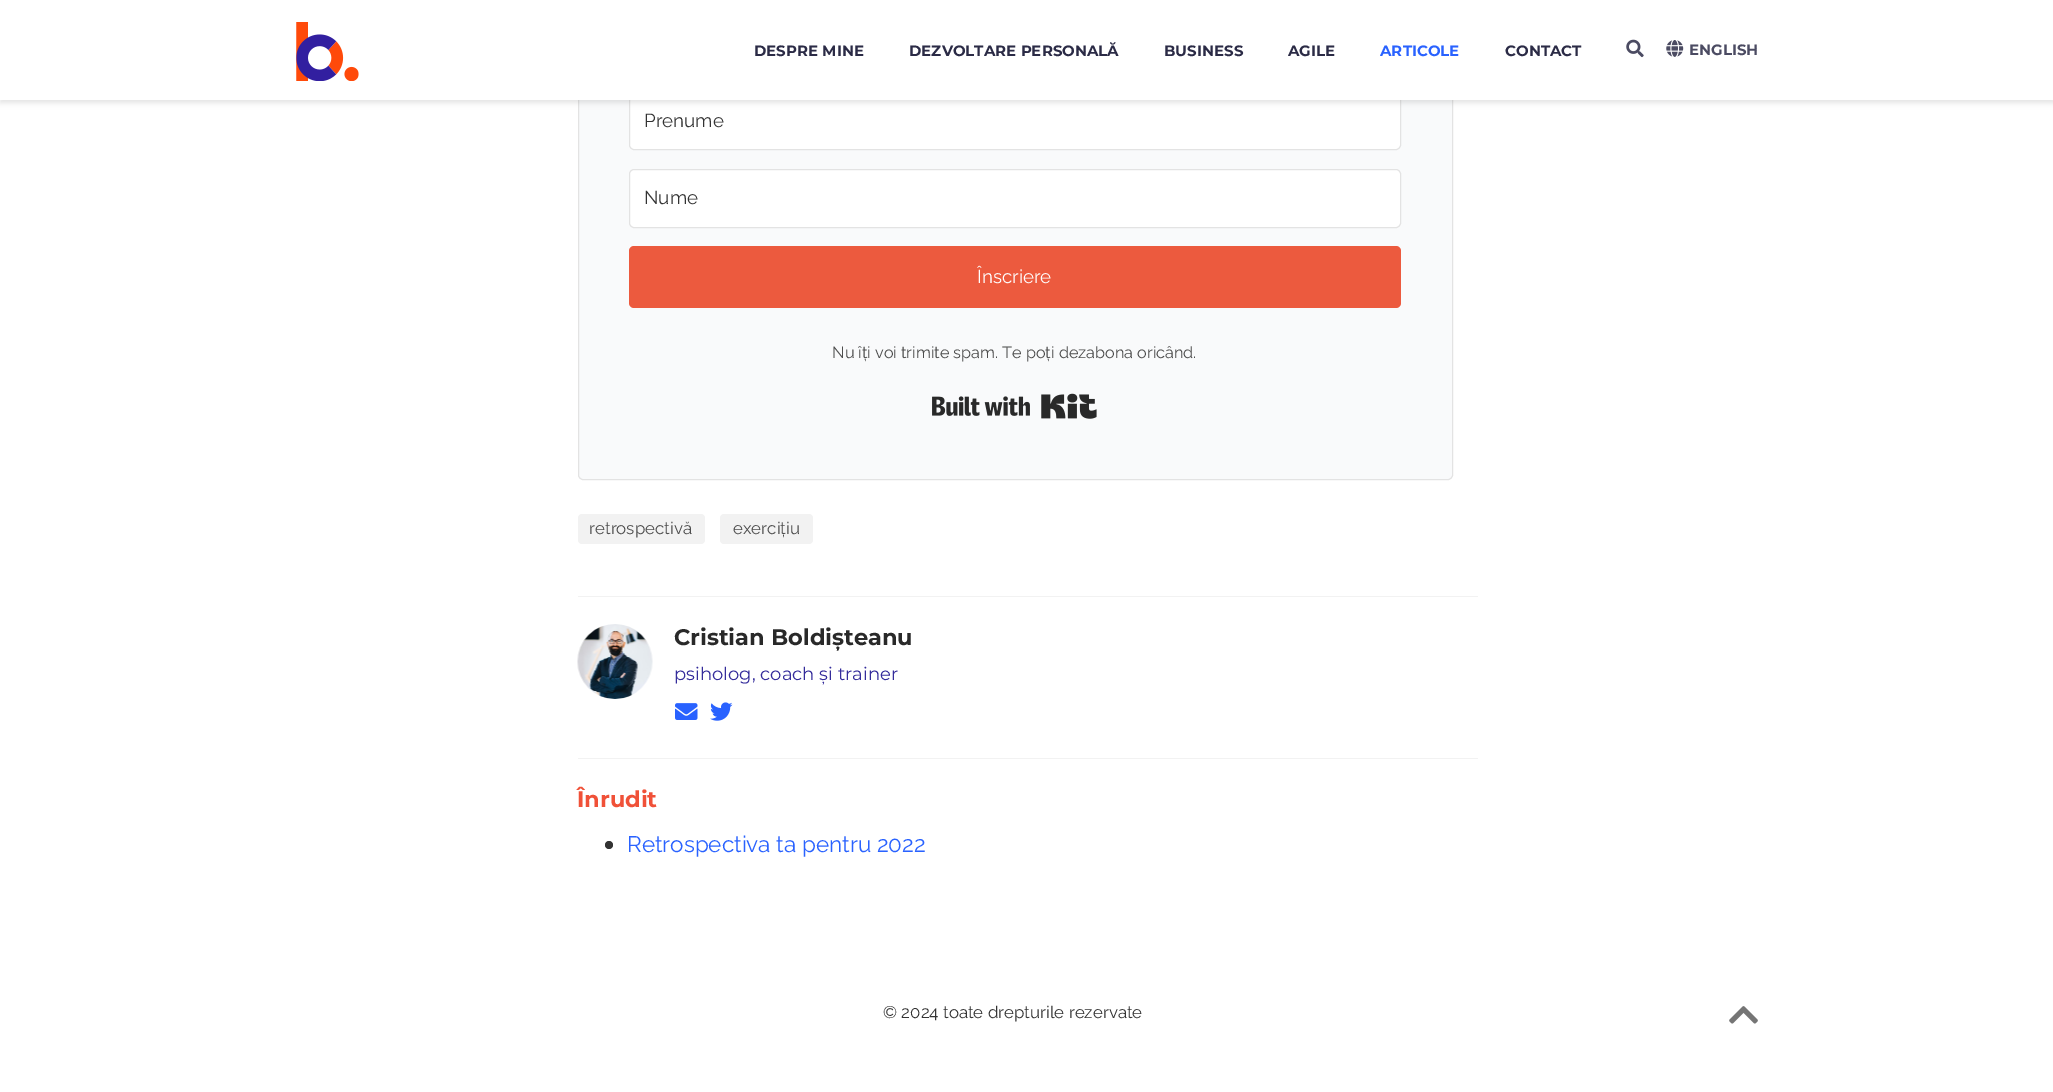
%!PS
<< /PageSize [2053 1092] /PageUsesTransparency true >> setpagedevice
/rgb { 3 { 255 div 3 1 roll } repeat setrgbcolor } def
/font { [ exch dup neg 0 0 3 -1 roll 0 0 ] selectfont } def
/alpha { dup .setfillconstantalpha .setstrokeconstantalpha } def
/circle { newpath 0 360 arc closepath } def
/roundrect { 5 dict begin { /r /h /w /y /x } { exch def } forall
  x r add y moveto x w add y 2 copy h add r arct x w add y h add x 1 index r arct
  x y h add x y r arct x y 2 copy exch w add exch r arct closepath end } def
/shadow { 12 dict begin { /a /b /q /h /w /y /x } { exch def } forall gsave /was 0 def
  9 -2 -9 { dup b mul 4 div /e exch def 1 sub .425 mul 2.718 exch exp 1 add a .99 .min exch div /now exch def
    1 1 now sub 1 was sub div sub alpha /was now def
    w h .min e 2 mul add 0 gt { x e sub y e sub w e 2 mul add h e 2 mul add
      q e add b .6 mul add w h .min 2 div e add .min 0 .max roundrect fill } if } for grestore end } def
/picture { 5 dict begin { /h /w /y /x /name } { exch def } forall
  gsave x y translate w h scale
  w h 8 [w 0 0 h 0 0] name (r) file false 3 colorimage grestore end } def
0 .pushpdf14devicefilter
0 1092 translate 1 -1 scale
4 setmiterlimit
255 255 255 rgb
0 0 2053 1092 rectfill
249 250 251 rgb
578.5 -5.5 874 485 4.5 roundrect gsave fill grestore
227 227 227 rgb
stroke
255 255 255 rgb
629.5 91.5 771 58 4.5 roundrect gsave fill grestore
227 227 227 rgb
stroke
0 0 0 rgb
0 3 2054 100 0 3 0.11 shadow
255 255 255 rgb
0 0 2053 100 rectfill
(img/1.rgb) 296 22 63 59 picture
(img/2.rgb) 1626 39 18 19 picture
(img/3.rgb) 1666 40 18 17 picture
629.5 169.5 771 58 4.5 roundrect gsave fill grestore
227 227 227 rgb
stroke
236 90 62 rgb
629 246 772 62 5 roundrect fill
(img/4.rgb) 932 393 165 26 picture
242 242 242 rgb
578 514 127 30 4 roundrect fill
720 514 93 30 4 roundrect fill
578 596 900 1 rectfill
(img/5.rgb) 577 624 76 75 picture
(img/6.rgb) 675 703 23 17 picture
(img/7.rgb) 710 702 23 19 picture
578 758 900 1 rectfill
51 51 51 rgb
609 845 4 circle fill
(img/8.rgb) 1729 1006 29 18 picture
/Montserrat-Bold 15 font
43 43 70 rgb
[
  [(DESPRE MINE) 754 56]
  [(DEZVOLTARE PERSONALĂ) 909 56]
  [(BUSINESS) 1164 56]
  [(AGILE) 1288 56]
] { aload pop moveto show } forall
41 98 255 rgb
1380 56 moveto (ARTICOLE) show
43 43 70 rgb
1505 56 moveto (CONTACT) show
75 75 98 rgb
1689 55 moveto (ENGLISH) show
/Raleway-Regular 18.75 font
51 51 51 rgb
644 127 moveto (Prenume) show
644 204 moveto (Nume) show
255 255 255 rgb
977 283 moveto (Înscriere) show
/Raleway-Regular 16.25 font
77 77 77 rgb
832 358 moveto (Nu îți voi trimite spam. Te poți dezabona oricând.) show
/Raleway-Regular 16.9 font
589 534 moveto (retrospectivă) show
733 534 moveto (exercițiu) show
/Montserrat-Bold 22.5 font
41 41 41 rgb
674 645 moveto (Cristian Boldișteanu) show
/Montserrat-Regular 18 font
52 44 155 rgb
674 680 moveto (psiholog, coach și trainer) show
/Montserrat-Bold 22.5 font
240 81 56 rgb
577 807 moveto (Înrudit) show
/Raleway-Regular 22.5 font
41 98 255 rgb
627 852 moveto (Retrospectiva ta pentru 2022) show
/Raleway-Regular 16.9 font
51 51 51 rgb
883 1018 moveto (© 2024 toate drepturile rezervate) show
.poppdf14devicefilter showpage
